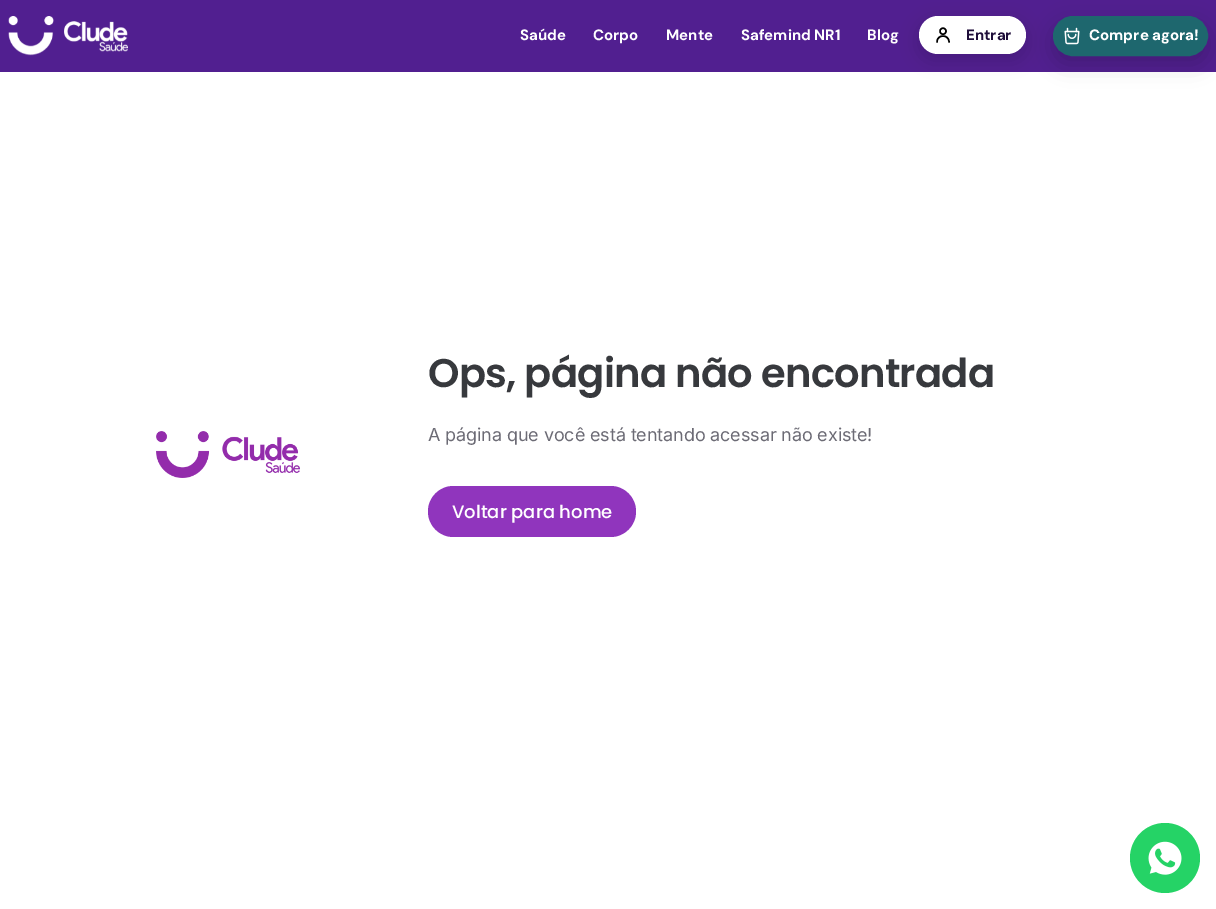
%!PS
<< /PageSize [1216 909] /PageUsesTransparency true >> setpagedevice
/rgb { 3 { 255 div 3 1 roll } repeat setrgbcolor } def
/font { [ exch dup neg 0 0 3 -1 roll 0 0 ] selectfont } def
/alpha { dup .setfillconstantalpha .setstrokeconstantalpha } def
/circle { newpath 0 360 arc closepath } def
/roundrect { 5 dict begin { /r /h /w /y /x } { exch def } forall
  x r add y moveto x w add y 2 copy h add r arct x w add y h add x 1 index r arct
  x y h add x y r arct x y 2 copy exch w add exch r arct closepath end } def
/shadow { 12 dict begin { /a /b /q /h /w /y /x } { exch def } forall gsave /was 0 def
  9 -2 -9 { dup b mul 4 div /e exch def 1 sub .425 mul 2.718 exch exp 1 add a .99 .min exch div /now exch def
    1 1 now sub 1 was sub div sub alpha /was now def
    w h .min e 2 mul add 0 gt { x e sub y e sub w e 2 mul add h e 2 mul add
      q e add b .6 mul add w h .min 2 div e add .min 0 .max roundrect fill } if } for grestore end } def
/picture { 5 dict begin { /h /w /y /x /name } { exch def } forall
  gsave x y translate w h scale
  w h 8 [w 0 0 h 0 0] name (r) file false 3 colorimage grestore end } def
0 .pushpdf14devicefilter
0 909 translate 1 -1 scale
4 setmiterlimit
255 255 255 rgb
0 0 1216 909 rectfill
81 31 144 rgb
0 0 1216 72 rectfill
(img/1.rgb) 8 16 120 40 picture
0 0 0 rgb
919 22 107 38 19 9 0.12 shadow
255 255 255 rgb
919 16 107 38 19 roundrect fill
0 0 0 rgb
1.5 setlinewidth
1 setlinecap
1 setlinejoin
949 42 moveto 949 34 937 34 937 42 curveto stroke
0 setlinecap
0 setlinejoin
943 31.2 3 circle stroke
1053 24 155 40 20 11 0.18 shadow
30 103 110 rgb
1054 17 153 38 19 roundrect gsave fill grestore
2 setlinewidth
stroke
(img/2.rgb) 1064 27 16 18 picture
(img/3.rgb) 156 431 144 47 picture
144 53 189 rgb
428 486 208 51 25.5 roundrect fill
37 211 102 rgb
1165 858 35 circle fill
(img/4.rgb) 1148 841 34 34 picture
/DMSans-Bold 15 font
255 255 255 rgb
[
  [(Saúde) 520 40]
  [(Corpo) 593 40]
  [(Mente) 666 40]
  [(Safemind NR1) 741 40]
  [(Blog) 867 40]
] { aload pop moveto show } forall
31 14 58 rgb
966 40 moveto (Entrar) show
/DMSans-ExtraBold 15 font
255 255 255 rgb
1089 40 moveto (Compre agora!) show
/Poppins-SemiBold 40 font
55 57 61 rgb
428 387 moveto -0.7 0 (Ops, página não encontrada) ashow
/Inter-Regular 18 font
108 107 117 rgb
428 441 moveto -0.1 0 (A página que você está tentando acessar não existe!) ashow
/Poppins-Medium 18 font
255 255 255 rgb
452 518 moveto (Voltar para home) show
.poppdf14devicefilter showpage
